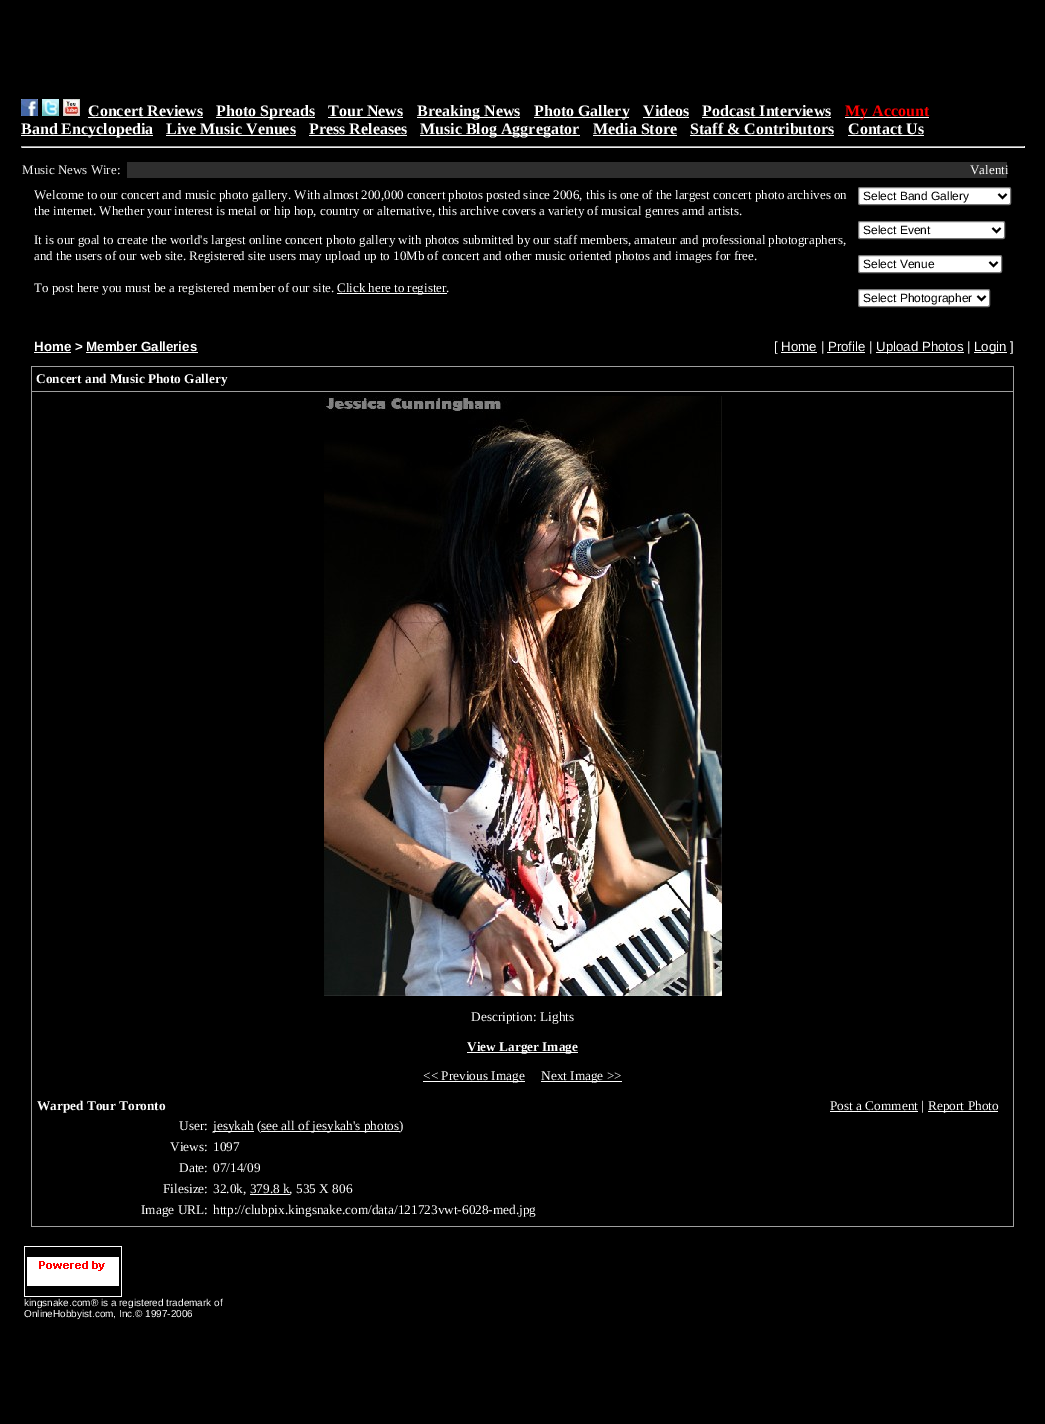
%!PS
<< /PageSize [1045 1424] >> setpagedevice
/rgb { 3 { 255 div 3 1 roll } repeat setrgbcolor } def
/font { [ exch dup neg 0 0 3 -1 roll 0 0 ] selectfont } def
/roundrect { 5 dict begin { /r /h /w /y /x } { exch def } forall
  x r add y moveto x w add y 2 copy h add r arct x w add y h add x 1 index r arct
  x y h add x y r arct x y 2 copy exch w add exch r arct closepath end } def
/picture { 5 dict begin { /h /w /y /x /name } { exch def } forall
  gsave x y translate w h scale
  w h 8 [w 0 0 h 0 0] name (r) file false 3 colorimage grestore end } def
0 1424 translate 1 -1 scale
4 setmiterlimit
0 0 0 rgb
0 0 1045 1424 rectfill
(img/1.rgb) 21 99 17 17 picture
(img/2.rgb) 42 99 17 17 picture
(img/3.rgb) 63 99 17 17 picture
[
  [88 117 115 1 255 255 255]
  [216 117 99 1 255 255 255]
  [328 117 75 1 255 255 255]
  [417 117 103 1 255 255 255]
  [534 117 95 1 255 255 255]
  [643 117 46 1 255 255 255]
  [702 117 129 1 255 255 255]
  [845 117 84 1 255 255 255]
  [21 135 132 1 255 255 255]
  [166 135 130 1 255 255 255]
  [309 135 98 1 255 255 255]
  [420 135 160 1 255 255 255]
  [593 135 84 1 255 255 255]
  [690 135 144 1 255 255 255]
  [848 135 76 1 255 255 255]
  [21 146 1004 1 159 159 159]
  [1024 146 1 2 238 238 238]
  [21 147 1004 1 238 238 238]
  [21 146 1 2 159 159 159]
  [127 162 880 16 46 46 46]
  [337 293 110 1 255 255 255]
] { aload pop rgb rectfill } forall
858.5 187.5 152 17 1.5 roundrect gsave fill grestore
118 118 118 rgb
stroke
0 0 0 rgb
2 setlinewidth
998.5 194 moveto 1002.5 198 lineto 1006.5 194 lineto stroke
255 255 255 rgb
858.5 221.5 146 17 1.5 roundrect gsave fill grestore
118 118 118 rgb
1 setlinewidth
stroke
0 0 0 rgb
2 setlinewidth
992.5 228 moveto 996.5 232 lineto 1000.5 228 lineto stroke
255 255 255 rgb
858.5 255.5 143 17 1.5 roundrect gsave fill grestore
118 118 118 rgb
1 setlinewidth
stroke
0 0 0 rgb
2 setlinewidth
989.5 262 moveto 993.5 266 lineto 997.5 262 lineto stroke
255 255 255 rgb
858.5 289.5 131 17 1.5 roundrect gsave fill grestore
118 118 118 rgb
1 setlinewidth
stroke
0 0 0 rgb
2 setlinewidth
977.5 296 moveto 981.5 300 lineto 985.5 296 lineto stroke
[
  [34 352 37 1 255 255 255]
  [86 352 112 1 255 255 255]
  [876 352 88 1 255 255 255]
  [974 352 33 1 255 255 255]
  [781 352 36 1 255 255 255]
  [827 352 38 1 255 255 255]
  [31 366 983 861 158 158 158]
  [32 367 981 24 0 0 0]
  [32 392 981 834 0 0 0]
] { aload pop rgb rectfill } forall
(img/4.rgb) 324 396 398 600 picture
[
  [467 1052 111 1 255 255 255]
  [423 1081 102 1 255 255 255]
  [541 1081 81 1 255 255 255]
  [830 1111 88 1 255 255 255]
  [928 1111 70 1 255 255 255]
  [213 1131 41 1 255 255 255]
  [261 1131 139 1 255 255 255]
  [250 1194 40 1 255 255 255]
] { aload pop rgb rectfill } forall
(img/5.rgb) 24 1246 98 51 picture
/LiberationSerif-Bold 16 font
[
  [(Concert Reviews) 88 116]
  [(Photo Spreads) 216 116]
  [(Tour News) 328 116]
  [(Breaking News) 417 116]
  [(Photo Gallery) 534 116]
  [(Videos) 643 116]
  [(Podcast Interviews) 702 116]
] { aload pop moveto show } forall
255 0 0 rgb
845 116 moveto (My Account) show
255 255 255 rgb
[
  [(Band Encyclopedia) 21 134]
  [(Live Music Venues) 166 134]
  [(Press Releases) 309 134]
  [(Music Blog Aggregator) 420 134]
  [(Media Store) 593 134]
  [(Staff & Contributors) 690 134]
  [(Contact Us) 848 134]
] { aload pop moveto show } forall
/LiberationSerif-Regular 13 font
240 240 240 rgb
22 174 moveto (Music News Wire:) show
255 255 255 rgb
[
  [(Valenti) 970 174]
  [(Welcome to our concert and music photo gallery. With almost 200,000 concert photos posted since 2006, this is one of the largest concert photo archives on) 34 199]
  [(the internet. Whether your interest is metal or hip hop, country or alternative, this archive covers a variety of musical genres amd artists.) 34 215]
  [(It is our goal to create the world's largest online concert photo gallery with photos submitted by our staff members, amateur and professional photographers,) 34 244]
  [(and the users of our web site. Registered site users may upload up to 10Mb of concert and other music oriented photos and images for free.) 34 260]
  [(To post here you must be a registered member of our site.) 34 292]
  [(Click here to register.) 337 292]
] { aload pop moveto show } forall
/LiberationSans-Regular 12 font
0 0 0 rgb
[
  [(Select Band Gallery) 863 200]
  [(Select Event) 863 234]
  [(Select Venue) 863 268]
  [(Select Photographer) 863 302]
] { aload pop moveto show } forall
/LiberationSans-Bold 13.3 font
255 255 255 rgb
34 351 moveto (Home > Member Galleries) show
/LiberationSans-Regular 13.3 font
[
  [([ Home | Profile |) 774 351]
  [(Upload Photos |) 876 351]
  [(Login ]) 974 351]
] { aload pop moveto show } forall
/LiberationSerif-Bold 13.3 font
36 383 moveto (Concert and Music Photo Gallery) show
/LiberationSerif-Regular 13.3 font
471 1021 moveto (Description: Lights) show
/LiberationSerif-Bold 13.3 font
467 1051 moveto (View Larger Image) show
/LiberationSerif-Regular 13.3 font
423 1080 moveto (<< Previous Image) show
541 1080 moveto (Next Image >>) show
/LiberationSerif-Bold 13.3 font
37 1110 moveto (Warped Tour Toronto) show
/LiberationSerif-Regular 13.3 font
[
  [(Post a Comment |) 830 1110]
  [(Report Photo) 928 1110]
  [(User:) 179 1130]
  [(jesykah \() 213 1130]
  [(see all of jesykah's photos\)) 261 1130]
  [(Views:) 170 1151]
  [(1097) 213 1151]
  [(Date:) 179 1172]
  [(07/14/09) 213 1172]
  [(Filesize:) 163 1193]
  [(32.0k, 379.8 k, 535 X 806) 213 1193]
  [(Image URL:) 141 1214]
  [(http://clubpix.kingsnake.com/data/121723vwt-6028-med.jpg) 213 1214]
] { aload pop moveto show } forall
/LiberationSans-Regular 10 font
24 1306 moveto (kingsnake.com® is a registered trademark of) show
24 1317 moveto (OnlineHobbyist.com, Inc.© 1997-2006) show
showpage
